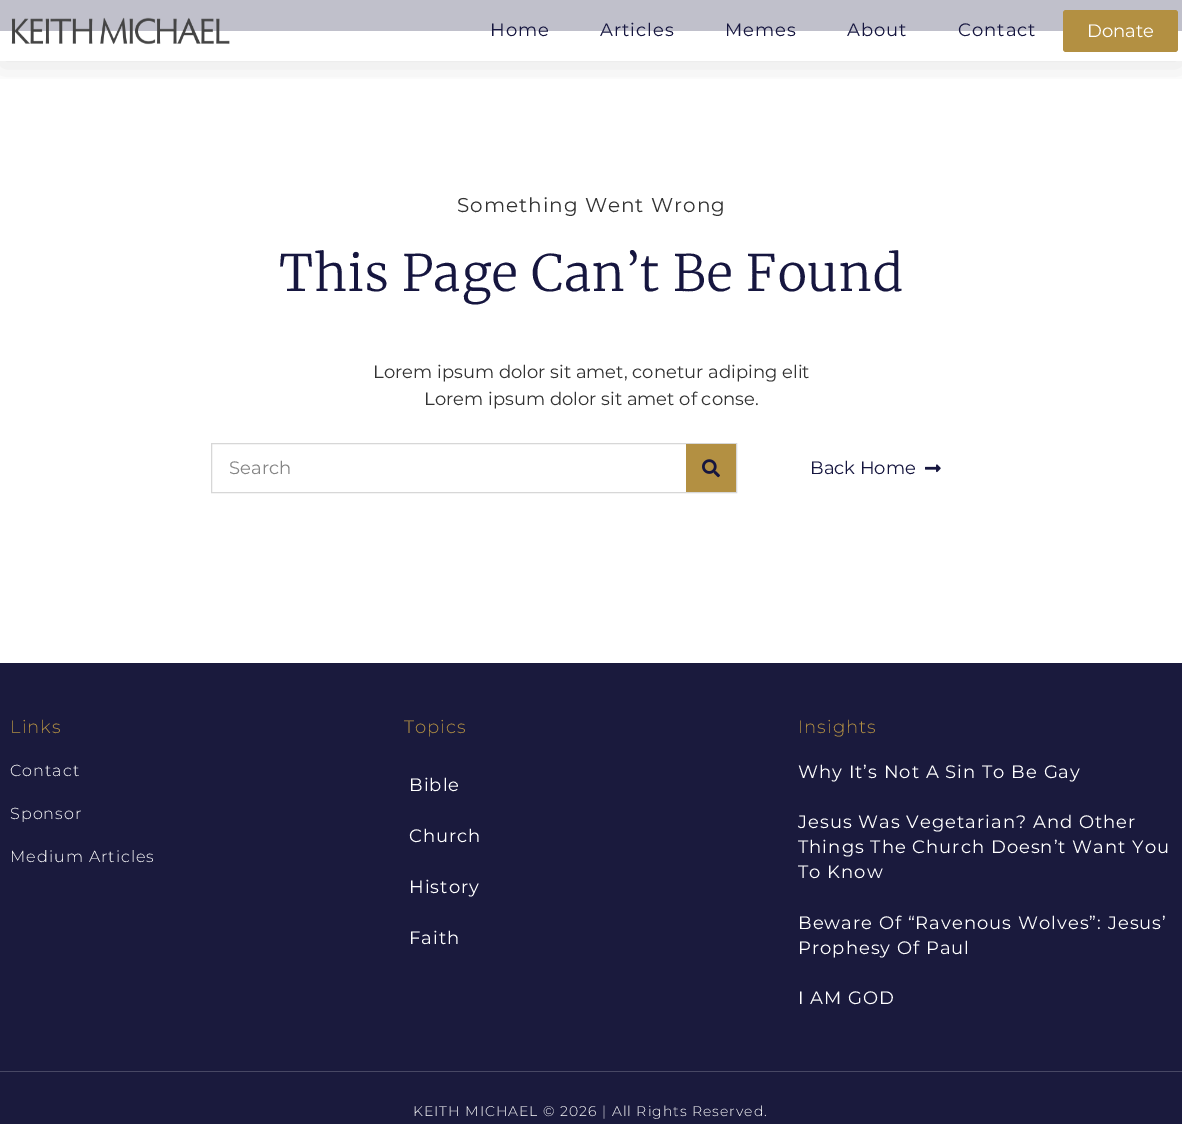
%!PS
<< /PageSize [1182 1124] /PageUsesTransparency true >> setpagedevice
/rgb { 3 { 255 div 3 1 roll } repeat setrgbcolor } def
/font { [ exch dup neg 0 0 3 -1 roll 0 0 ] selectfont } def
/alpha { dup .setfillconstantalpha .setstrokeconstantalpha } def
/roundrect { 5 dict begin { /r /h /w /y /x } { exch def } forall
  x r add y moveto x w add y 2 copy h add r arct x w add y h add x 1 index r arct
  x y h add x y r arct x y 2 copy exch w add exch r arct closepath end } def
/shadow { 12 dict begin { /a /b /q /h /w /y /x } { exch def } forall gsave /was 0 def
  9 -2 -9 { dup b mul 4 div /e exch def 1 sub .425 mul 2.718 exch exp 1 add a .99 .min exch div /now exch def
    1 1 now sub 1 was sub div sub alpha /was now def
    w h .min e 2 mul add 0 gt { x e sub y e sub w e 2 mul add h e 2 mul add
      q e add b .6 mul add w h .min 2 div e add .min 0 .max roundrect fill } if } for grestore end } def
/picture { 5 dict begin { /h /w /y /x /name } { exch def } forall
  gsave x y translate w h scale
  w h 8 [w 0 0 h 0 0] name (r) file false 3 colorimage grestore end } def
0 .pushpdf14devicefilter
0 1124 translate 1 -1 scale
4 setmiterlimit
255 255 255 rgb
0 0 1182 1124 rectfill
192 192 203 rgb
0 0 1182 31 rectfill
gsave
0 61 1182 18 rectclip
0 0 0 rgb
0 5 1182 61 0 15 0.1 shadow
grestore
(img/1.rgb) 11 17 219 28 picture
179 144 66 rgb
1063 10 115 42 3 roundrect fill
215 215 215 rgb
211.5 443.5 525 49 rectstroke
179 144 66 rgb
686 444 50 48 rectfill
(img/2.rgb) 702 459 18 19 picture
(img/3.rgb) 925 464 16 9 picture
26 26 61 rgb
0 663 1182 461 rectfill
72 72 100 rgb
0 1071 1182 1 rectfill
/Montserrat-Regular 18 font
22 22 63 rgb
490 36 moveto 1 0 (Home) ashow
600 36 moveto 1 0 (Articles) ashow
725 36 moveto 1 0 (Memes) ashow
847 36 moveto 1 0 (About) ashow
958 36 moveto 1 0 (Contact) ashow
255 255 255 rgb
1087 37 moveto (Donate) show
/Montserrat-Regular 20 font
51 51 51 rgb
457 212 moveto 1 0 (Something Went Wrong) ashow
/Merriweather-Light 50 font
22 22 63 rgb
279 291 moveto 1 0 (This Page Can’t Be Found) ashow
/Montserrat-Regular 18 font
51 51 51 rgb
373 378 moveto (Lorem ipsum dolor sit amet, conetur adiping elit) show
424 405 moveto (Lorem ipsum dolor sit amet of conse.) show
133 133 133 rgb
229 474 moveto (Search) show
22 22 63 rgb
810 474 moveto (Back Home) show
/Montserrat-Light 18 font
179 144 66 rgb
10 733 moveto 1 0 (Links) ashow
/Montserrat-Light 16 font
255 255 255 rgb
10 776 moveto 1 0 (Contact) ashow
10 819 moveto 1 0 (Sponsor) ashow
10 862 moveto 1 0 (Medium Articles) ashow
/Montserrat-Light 18 font
179 144 66 rgb
404 733 moveto 1 0 (Topics) ashow
/Montserrat-Regular 18 font
255 255 255 rgb
409 791 moveto 1 0 (Bible) ashow
409 842 moveto 1 0 (Church) ashow
409 893 moveto 1 0 (History) ashow
409 944 moveto 1 0 (Faith) ashow
/Montserrat-Light 18 font
179 144 66 rgb
798 733 moveto 1 0 (Insights) ashow
/Montserrat-Regular 18 font
255 255 255 rgb
798 778 moveto 1 0 (Why It’s Not A Sin To Be Gay) ashow
798 828 moveto 1 0 (Jesus Was Vegetarian? And Other) ashow
798 853 moveto 1 0 (Things The Church Doesn’t Want You) ashow
798 878 moveto 1 0 (To Know) ashow
798 929 moveto 1 0 (Beware Of “Ravenous Wolves”: Jesus’) ashow
798 954 moveto 1 0 (Prophesy Of Paul) ashow
798 1004 moveto 1 0 (I AM GOD) ashow
/Montserrat-Light 14 font
413 1116 moveto 1 0 (KEITH MICHAEL © 2026 | All Rights Reserved.) ashow
.poppdf14devicefilter showpage
